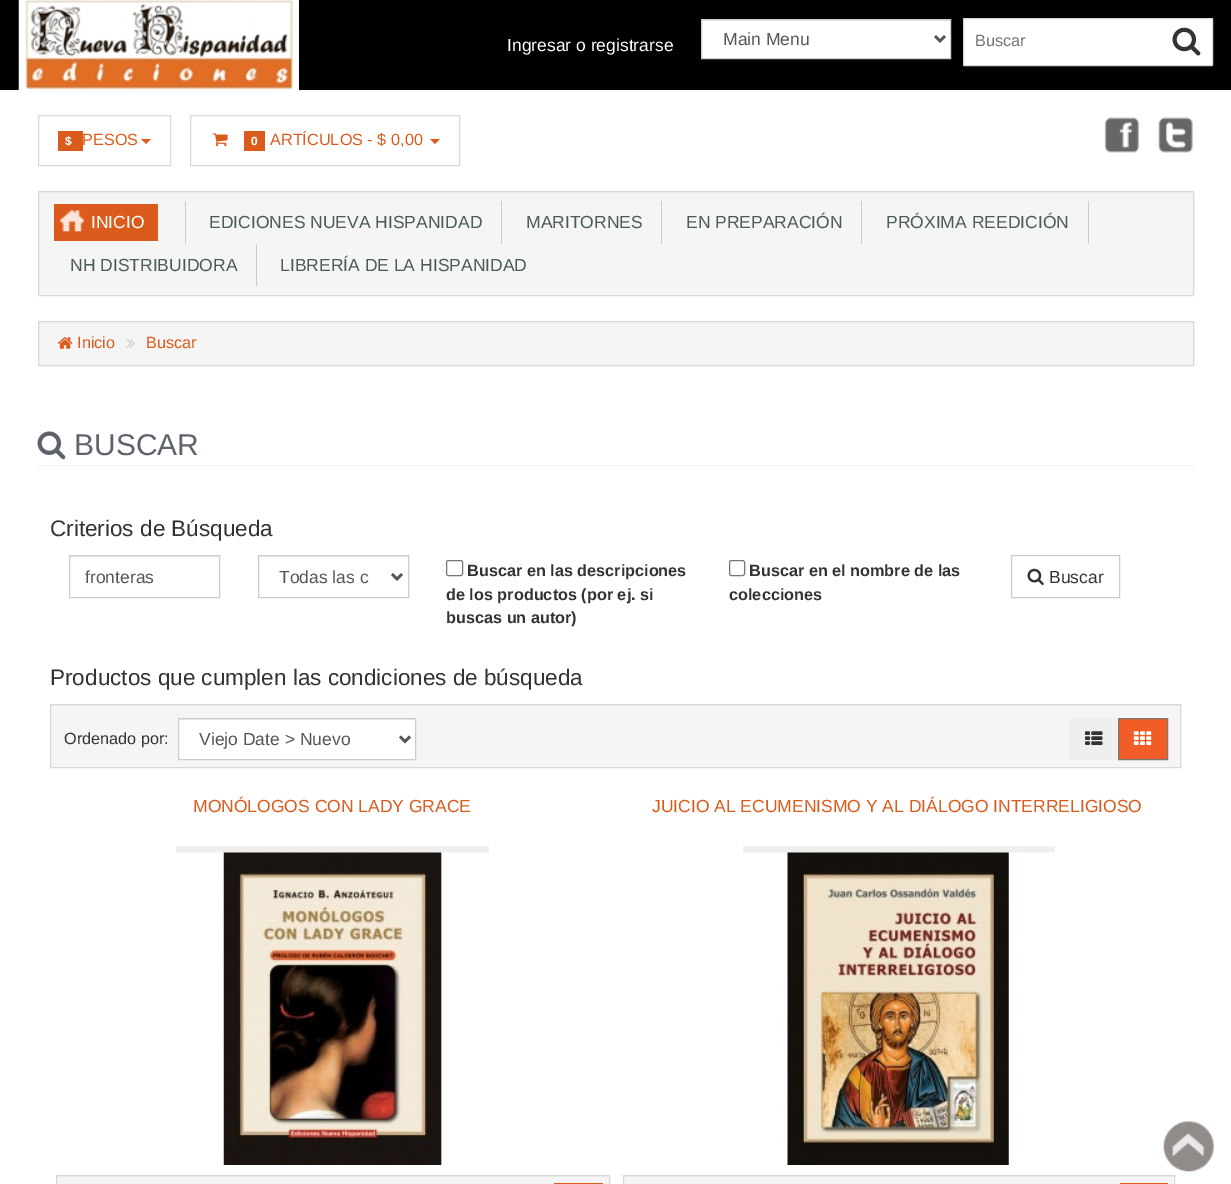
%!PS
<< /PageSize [1231 1184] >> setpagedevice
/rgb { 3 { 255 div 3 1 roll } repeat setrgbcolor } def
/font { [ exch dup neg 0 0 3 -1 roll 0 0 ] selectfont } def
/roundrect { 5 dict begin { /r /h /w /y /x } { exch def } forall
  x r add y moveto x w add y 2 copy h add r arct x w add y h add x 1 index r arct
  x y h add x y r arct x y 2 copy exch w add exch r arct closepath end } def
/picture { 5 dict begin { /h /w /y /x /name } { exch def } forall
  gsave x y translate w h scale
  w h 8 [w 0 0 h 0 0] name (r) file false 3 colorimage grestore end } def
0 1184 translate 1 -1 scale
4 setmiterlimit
255 255 255 rgb
0 0 1231 1184 rectfill
0 0 0 rgb
0 0 1231 90 rectfill
255 255 255 rgb
294 0 5 90 rectfill
(img/1.rgb) 18 0 276 91 picture
702 20 248 38 rectfill
236 236 236 rgb
703 20 247 1 rectfill
204 204 204 rgb
701.5 19.5 249 39 rectstroke
85 85 85 rgb
2.5 setlinewidth
935 36 moveto 940 41 lineto 945 36 lineto stroke
255 255 255 rgb
963.5 18.5 249 47 0.5 roundrect gsave fill grestore
215 216 218 rgb
1 setlinewidth
stroke
(img/2.rgb) 1172 27 29 29 picture
38.5 115.5 132 50 rectstroke
219 91 28 rgb
58 131 25 20 rectfill
141 139 moveto 151 139 lineto 146 144 lineto closepath fill
215 216 218 rgb
190.5 115.5 269 50 rectstroke
(img/3.rgb) 212 133 16 14 picture
219 91 28 rgb
244 131 21 20 rectfill
430 139 moveto 440 139 lineto 435 144 lineto closepath fill
(img/4.rgb) 1104 117 35 36 picture
(img/5.rgb) 1158 117 35 36 picture
245 245 245 rgb
38 191 1156 105 1 roundrect fill
239 239 239 rgb
39 193 1154 1 rectfill
215 216 218 rgb
38.5 191.5 1155 104 0.5 roundrect stroke
204 204 204 rgb
185 201 1 43 rectfill
219 91 28 rgb
55 204 moveto 157 204 lineto 157.5 204 158 204.5 158 205 curveto 158 241 lineto 54 241 lineto 54 205 lineto 54 204.5 54.5 204 55 204 curveto closepath fill
(img/6.rgb) 60 209 24 23 picture
[
  [501 201 1 43 204 204 204]
  [661 201 1 43 204 204 204]
  [861 201 1 43 204 204 204]
  [1088 201 1 43 204 204 204]
  [256 244 1 42 204 204 204]
  [39 322 1154 43 245 245 245]
  [39 323 1154 1 239 239 239]
] { aload pop rgb rectfill } forall
215 216 218 rgb
38.5 321.5 1155 44 rectstroke
(img/7.rgb) 57 337 16 12 picture
(img/8.rgb) 126 339 9 9 picture
239 239 239 rgb
38 465 1156 1 rectfill
(img/9.rgb) 37 431 29 29 picture
236 236 236 rgb
70 556 149 1 rectfill
204 204 204 rgb
69.5 555.5 150 42 rectstroke
236 236 236 rgb
259 556 149 1 rectfill
204 204 204 rgb
258.5 555.5 150 42 rectstroke
85 85 85 rgb
2.5 setlinewidth
392 574 moveto 397 579 lineto 402 574 lineto stroke
118 118 118 rgb
1 setlinewidth
446.5 560.5 16 15 2 roundrect stroke
729.5 560.5 15 15 2 roundrect stroke
204 204 204 rgb
1011.5 555.5 108 42 rectstroke
(img/10.rgb) 1027 568 17 17 picture
245 245 245 rgb
51 706 1129 61 rectfill
239 239 239 rgb
51 705 1129 1 rectfill
215 216 218 rgb
50.5 704.5 1130 63 rectstroke
255 255 255 rgb
179 720 236 39 rectfill
236 236 236 rgb
179 719 236 1 rectfill
204 204 204 rgb
178.5 718.5 237 41 rectstroke
85 85 85 rgb
2.5 setlinewidth
400 736.5 moveto 405 741.5 lineto 410 736.5 lineto stroke
239 239 239 rgb
1069 718 49 42 rectfill
(img/11.rgb) 1085 731 18 14 picture
242 92 39 rgb
1118.5 718.5 moveto 1167.5 718.5 lineto 1167.5 759.5 lineto 1118.5 759.5 lineto closepath gsave fill grestore
119 119 119 rgb
1 setlinewidth
stroke
(img/12.rgb) 1133 731 19 14 picture
239 239 239 rgb
176 846 313 7 rectfill
(img/13.rgb) 176 852 313 313 picture
245 245 245 rgb
57 1176 552 8 rectfill
239 239 239 rgb
58 1176 551 1 rectfill
215 216 218 rgb
56.5 1175.5 553 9 rectstroke
219 91 28 rgb
554 1183 49 1 rectfill
239 239 239 rgb
743 846 312 7 rectfill
(img/14.rgb) 743 852 312 313 picture
245 245 245 rgb
624 1177 550 7 rectfill
239 239 239 rgb
624 1176 550 1 rectfill
215 216 218 rgb
623.5 1175.5 551 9 rectstroke
219 91 28 rgb
1120 1183 48 1 rectfill
(img/15.rgb) 1163 1121 51 51 picture
/LiberationSans-Regular 17.5 font
255 255 255 rgb
507 51 moveto (Ingresar o registrarse) show
85 85 85 rgb
723 45 moveto (Main Menu) show
/LiberationSans-Regular 16.25 font
117 117 117 rgb
975 46 moveto (Buscar) show
/LiberationSans-Bold 12 font
255 255 255 rgb
65 145 moveto ($) show
/LiberationSans-Regular 16.25 font
219 91 28 rgb
82 145 moveto (PESOS) show
/LiberationSans-Bold 12 font
255 255 255 rgb
251 145 moveto (0) show
/LiberationSans-Regular 16.25 font
219 91 28 rgb
270 145 moveto (ARTÍCULOS - $ 0,00) show
/LiberationSans-Regular 17.5 font
255 255 255 rgb
91 228 moveto (INICIO) show
75 91 88 rgb
[
  [(EDICIONES NUEVA HISPANIDAD) 209 228]
  [(MARITORNES) 526 228]
  [(EN PREPARACIÓN) 686 228]
  [(PRÓXIMA REEDICIÓN) 886 228]
  [(NH DISTRIBUIDORA) 70 271]
  [(LIBRERÍA DE LA HISPANIDAD) 280 271]
] { aload pop moveto show } forall
/LiberationSans-Regular 16.25 font
219 91 28 rgb
77 348 moveto (Inicio) show
146 348 moveto (Buscar) show
/LiberationSans-Regular 30 font
94 98 107 rgb
74 455 moveto (BUSCAR) show
/LiberationSans-Regular 22.5 font
51 51 51 rgb
50 536 moveto (Criterios de Búsqueda) show
/LiberationSans-Regular 17.5 font
85 85 85 rgb
85 583 moveto (fronteras) show
279 583 moveto (Todas las c) show
/LiberationSans-Bold 16.25 font
51 51 51 rgb
[
  [(Buscar en las descripciones) 467 576]
  [(de los productos \(por ej. si) 446 600]
  [(buscas un autor\)) 446 623]
  [(Buscar en el nombre de las) 749 576]
  [(colecciones) 729 600]
] { aload pop moveto show } forall
/LiberationSans-Regular 17.5 font
1049 583 moveto (Buscar) show
/LiberationSans-Regular 22.5 font
50 685 moveto (Productos que cumplen las condiciones de búsqueda) show
/LiberationSans-Regular 16.25 font
64 744 moveto (Ordenado por:) show
/LiberationSans-Regular 17.5 font
85 85 85 rgb
199 745 moveto (Viejo Date > Nuevo) show
219 91 28 rgb
193 812 moveto (MONÓLOGOS CON LADY GRACE) show
652 812 moveto (JUICIO AL ECUMENISMO Y AL DIÁLOGO INTERRELIGIOSO) show
showpage
